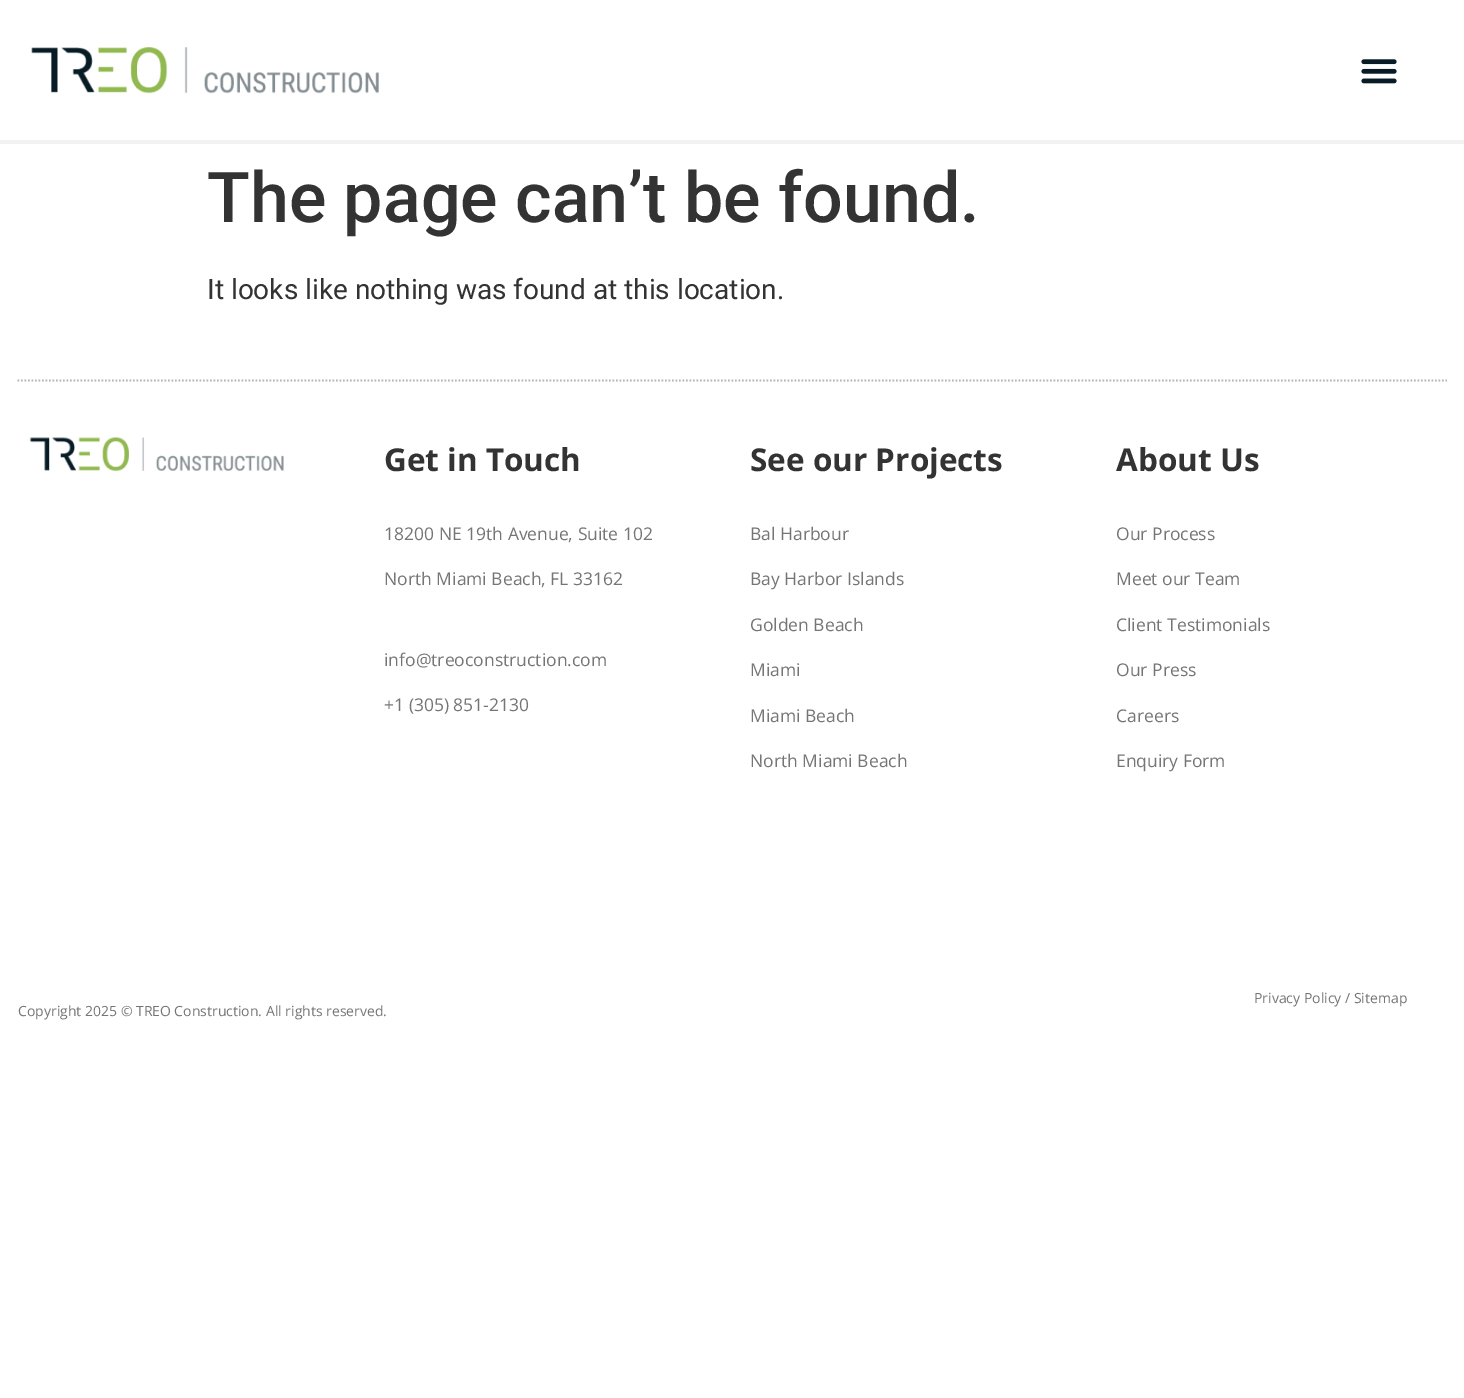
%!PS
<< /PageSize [1464 1398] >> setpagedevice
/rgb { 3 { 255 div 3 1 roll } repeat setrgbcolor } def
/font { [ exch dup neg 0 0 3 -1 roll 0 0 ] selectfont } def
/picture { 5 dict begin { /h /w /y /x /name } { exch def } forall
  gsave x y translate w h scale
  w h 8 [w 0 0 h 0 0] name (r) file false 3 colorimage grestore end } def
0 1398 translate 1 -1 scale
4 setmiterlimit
255 255 255 rgb
0 0 1464 1398 rectfill
242 242 242 rgb
0 140 1464 4 rectfill
(img/1.rgb) 31 47 348 47 picture
(img/2.rgb) 1361 59 36 25 picture
181 181 181 rgb
1.8 setlinewidth
[1.75 1.75] 0 setdash
17.5 380.5 moveto 1447 380.5 lineto stroke
(img/3.rgb) 29 437 255 34 picture
/Roboto-Medium 70 font
51 51 51 rgb
207 222 moveto (The page can’t be found.) show
/Roboto-Regular 28 font
207 299 moveto (It looks like nothing was found at this location.) show
/OpenSans-Bold 31.5 font
384 471 moveto (Get in Touch) show
/OpenSans-Regular 17.5 font
117 117 117 rgb
[
  [(18200 NE 19th Avenue, Suite 102) 384 540]
  [(North Miami Beach, FL 33162) 384 585]
  [(info@treoconstruction.com) 384 666]
  [(+1 \(305\) 851-2130) 384 711]
] { aload pop moveto show } forall
/OpenSans-Bold 31.5 font
51 51 51 rgb
750 471 moveto (See our Projects) show
/OpenSans-Regular 17.5 font
117 117 117 rgb
[
  [(Bal Harbour) 750 540]
  [(Bay Harbor Islands) 750 585]
  [(Golden Beach) 750 631]
  [(Miami) 750 676]
  [(Miami Beach) 750 722]
  [(North Miami Beach) 750 767]
] { aload pop moveto show } forall
/OpenSans-Bold 31.5 font
51 51 51 rgb
1116 471 moveto (About Us) show
/OpenSans-Regular 17.5 font
117 117 117 rgb
[
  [(Our Process) 1116 540]
  [(Meet our Team) 1116 585]
  [(Client Testimonials) 1116 631]
  [(Our Press) 1116 676]
  [(Careers) 1116 722]
  [(Enquiry Form) 1116 767]
] { aload pop moveto show } forall
/OpenSans-Regular 14 font
1254 1003 moveto (Privacy Policy / Sitemap) show
18 1016 moveto (Copyright 2025 © TREO Construction. All rights reserved.) show
showpage
